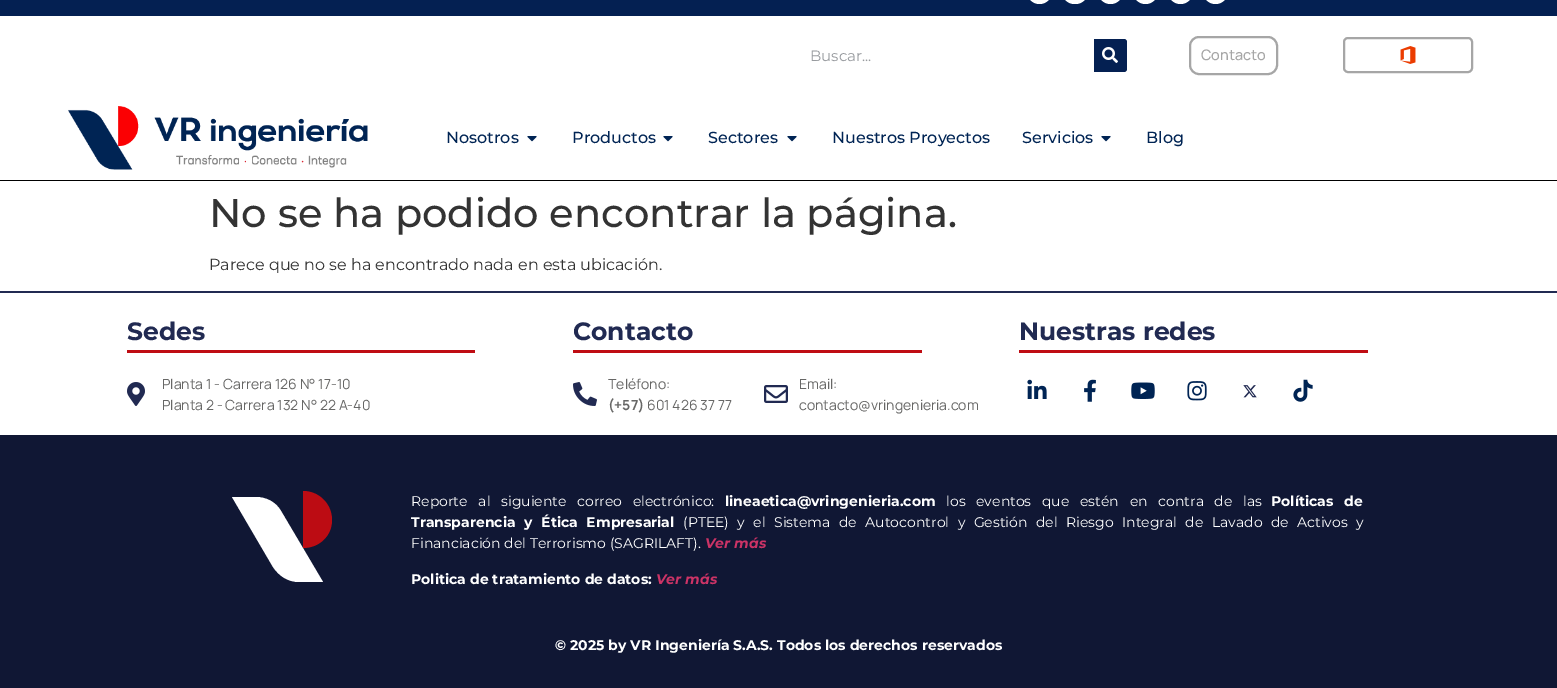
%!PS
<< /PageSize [1557 688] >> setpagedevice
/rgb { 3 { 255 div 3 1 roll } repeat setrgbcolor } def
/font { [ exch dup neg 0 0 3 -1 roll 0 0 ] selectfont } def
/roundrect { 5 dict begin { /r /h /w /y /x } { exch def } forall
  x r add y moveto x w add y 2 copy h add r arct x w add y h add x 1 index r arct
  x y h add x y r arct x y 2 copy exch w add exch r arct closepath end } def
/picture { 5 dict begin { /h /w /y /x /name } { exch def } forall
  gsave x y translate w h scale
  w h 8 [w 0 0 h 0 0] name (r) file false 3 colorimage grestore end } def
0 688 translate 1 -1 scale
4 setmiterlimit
255 255 255 rgb
0 0 1557 688 rectfill
4 32 82 rgb
0 0 1557 16 rectfill
255 255 255 rgb
1027 -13 25 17 12.5 roundrect fill
1062 -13 26 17 12.5 roundrect fill
1098 -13 25 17 12.5 roundrect fill
1133 -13 25 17 12.5 roundrect fill
1168 -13 25 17 12.5 roundrect fill
1203 -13 25 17 12.5 roundrect fill
4 32 82 rgb
1094 39 moveto 1124 39 lineto 1125.5 39 1127 40.5 1127 42 curveto 1127 69 lineto 1127 70.5 1125.5 72 1124 72 curveto 1094 72 lineto closepath fill
(img/1.rgb) 1102 47 16 16 picture
166 166 166 rgb
2 setlinewidth
1190 37 87 37 9 roundrect stroke
1344 38 128 34 4 roundrect stroke
(img/2.rgb) 1400 46 16 18 picture
0 0 0 rgb
0 180 1557 1 rectfill
(img/3.rgb) 68 106 300 64 picture
(img/4.rgb) 527 136 10 6 picture
(img/4.rgb) 663 136 10 6 picture
(img/4.rgb) 787 136 10 6 picture
(img/4.rgb) 1101 136 10 6 picture
33 42 82 rgb
0 291 1557 2 rectfill
191 12 19 rgb
127 350 348 3 rectfill
(img/5.rgb) 127 382 18 24 picture
573 350 349 3 rectfill
(img/6.rgb) 573 382 24 24 picture
(img/7.rgb) 764 385 24 18 picture
1019 350 349 3 rectfill
(img/8.rgb) 1027 379 20 20 picture
(img/9.rgb) 1084 379 12 23 picture
(img/10.rgb) 1131 382 24 17 picture
(img/11.rgb) 1187 381 20 20 picture
(img/12.rgb) 1241 382 18 18 picture
(img/13.rgb) 1293 379 20 23 picture
16 23 52 rgb
0 435 1557 253 rectfill
255 255 255 rgb
256 497 moveto 232 497 lineto 273 567 lineto 279 576 288 582 299 582 curveto 323 582 lineto 281 511 lineto 276 502 266 497 256 497 curveto fill
188 12 19 rgb
303 548 moveto 319 548 332 536 332 520 curveto 332 504 319 491 303 491 curveto closepath fill
/Montserrat-Regular 15 font
152 155 159 rgb
810 61 moveto (Buscar...) show
/Manrope-Medium 14.5 font
166 166 166 rgb
1201 60 moveto (Contacto) show
/Montserrat-Medium 16 font
0 36 84 rgb
[
  [(Nosotros) 446 143]
  [(Productos) 572 143]
  [(Sectores) 708 143]
  [(Nuestros Proyectos) 832 143]
  [(Servicios) 1022 143]
  [(Blog) 1146 143]
] { aload pop moveto show } forall
/Montserrat-Medium 40 font
51 51 51 rgb
209 227 moveto (No se ha podido encontrar la página.) show
/Montserrat-Regular 16 font
209 270 moveto (Parece que no se ha encontrado nada en esta ubicación.) show
/Montserrat-Bold 25 font
33 42 82 rgb
127 340 moveto (Sedes) show
/Manrope-Regular 14 font
103 103 102 rgb
162 389 moveto (Planta 1 - Carrera 126 N° 17-10) show
162 410 moveto (Planta 2 - Carrera 132 N° 22 A-40) show
/Montserrat-Bold 25 font
33 42 82 rgb
573 340 moveto (Contacto) show
/Manrope-Regular 14 font
103 103 102 rgb
608 389 moveto (Teléfono:) show
/Manrope-Bold 14 font
608 410 moveto (\(+57\)) show
/Manrope-Regular 14 font
[
  [(601 426 37 77) 647 410]
  [(Email:) 799 389]
  [(contacto@vringenieria.com) 799 410]
] { aload pop moveto show } forall
/Montserrat-Bold 25 font
33 42 82 rgb
1019 340 moveto (Nuestras redes) show
/Montserrat-Regular 14 font
255 255 255 rgb
411 506 moveto 7 0 32 (Reporte al siguiente correo electrónico:) widthshow
/Montserrat-Bold 14 font
725 506 moveto (lineaetica@vringenieria.com) show
/Montserrat-Regular 14 font
946 506 moveto 7 0 32 (los eventos que estén en contra de las) widthshow
/Montserrat-Bold 14 font
1271 506 moveto 7 0 32 (Políticas de) widthshow
411 527 moveto 4.75 0 32 (Transparencia y Ética Empresarial) widthshow
/Montserrat-Regular 14 font
683 527 moveto 4.75 0 32 (\(PTEE\) y el Sistema de Autocontrol y Gestión del Riesgo Integral de Lavado de Activos y) widthshow
411 548 moveto (Financiación del Terrorismo \(SAGRILAFT\).) show
/Montserrat-BoldItalic 14 font
204 51 102 rgb
705 548 moveto (Ver más) show
/Montserrat-Bold 14 font
255 255 255 rgb
411 584 moveto (Politica de tratamiento de datos:) show
/Montserrat-BoldItalic 14 font
204 51 102 rgb
656 584 moveto (Ver más) show
/Montserrat-Bold 14 font
255 255 255 rgb
555 650 moveto (© 2025 by VR Ingeniería S.A.S. Todos los derechos reservados) show
showpage
